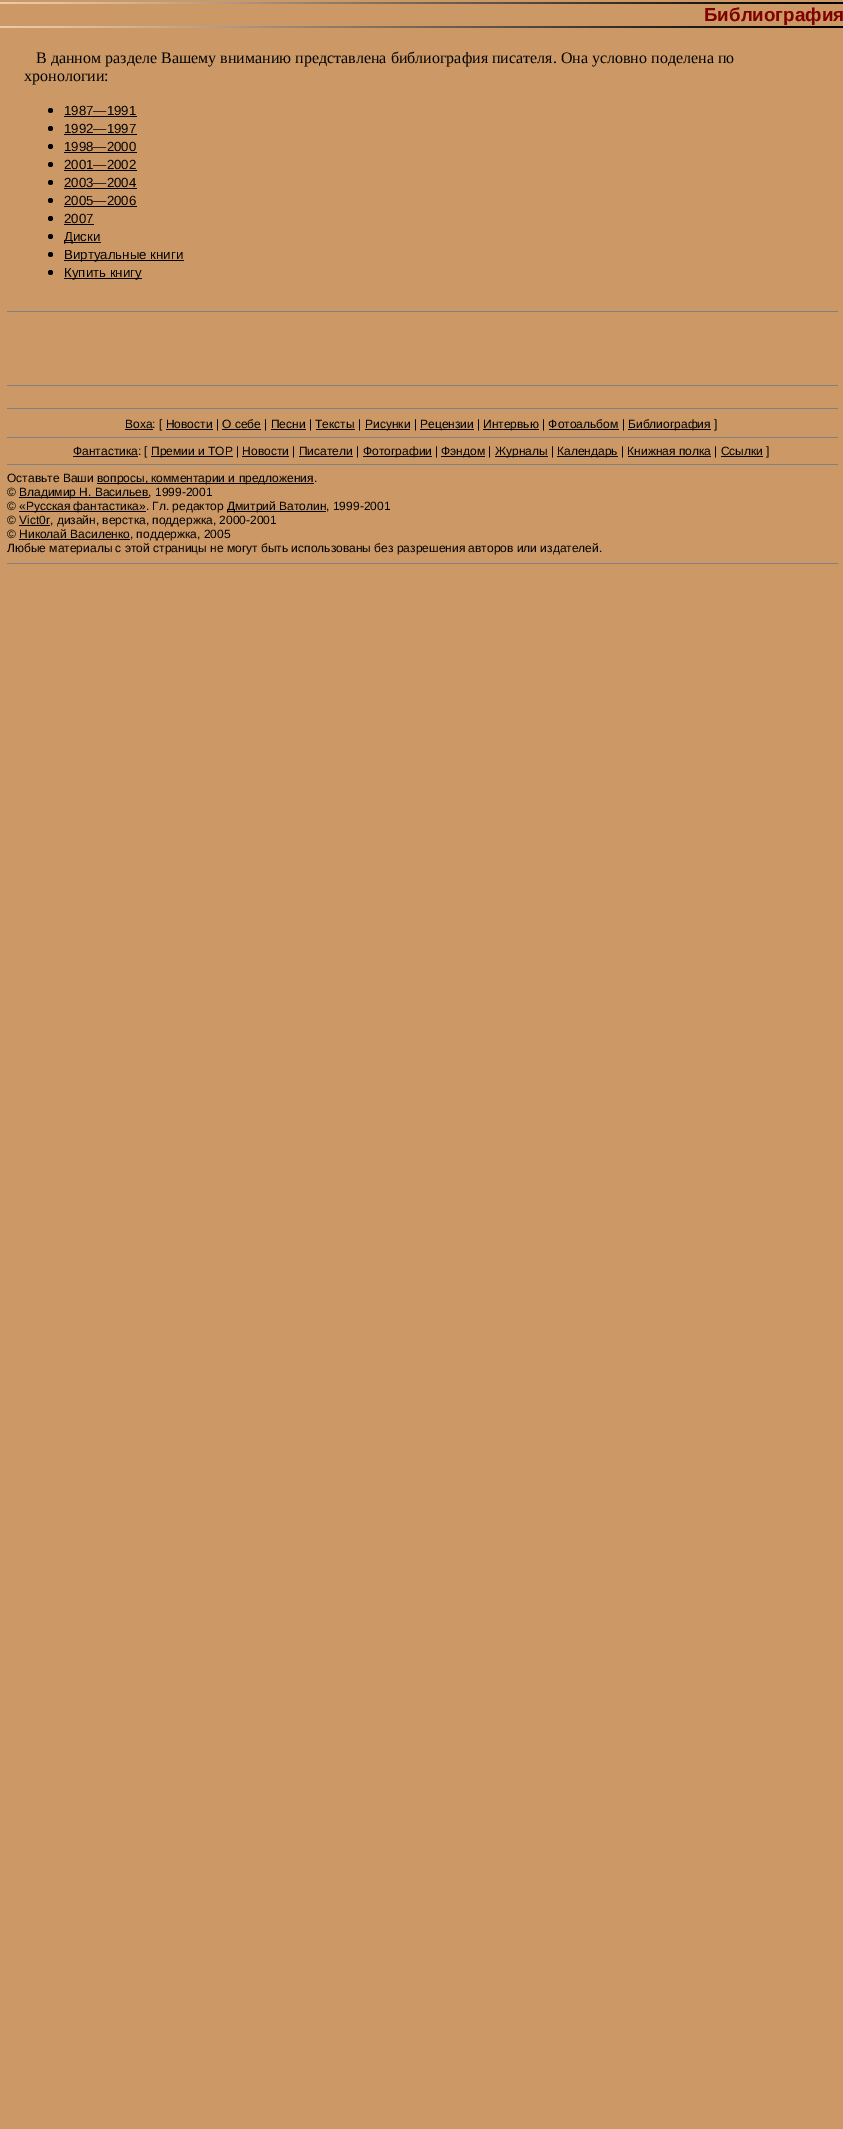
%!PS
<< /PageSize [843 2129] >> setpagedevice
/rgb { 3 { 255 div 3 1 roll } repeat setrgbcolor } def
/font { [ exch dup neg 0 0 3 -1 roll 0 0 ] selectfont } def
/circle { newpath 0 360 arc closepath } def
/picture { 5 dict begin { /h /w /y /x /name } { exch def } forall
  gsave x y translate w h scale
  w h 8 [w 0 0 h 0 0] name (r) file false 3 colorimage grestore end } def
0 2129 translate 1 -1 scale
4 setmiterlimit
204 153 102 rgb
0 0 843 2129 rectfill
(img/1.rgb) 0 2 843 2 picture
(img/1.rgb) 0 26 843 2 picture
0 0 0 rgb
50.5 110.5 2.5 circle fill
64 116 73 1 rectfill
50.5 128.5 2.5 circle fill
64 134 73 1 rectfill
50.5 146.5 2.5 circle fill
64 152 73 1 rectfill
50.5 164.5 2.5 circle fill
64 170 73 1 rectfill
50.5 182.5 2.5 circle fill
64 188 73 1 rectfill
50.5 200.5 2.5 circle fill
64 206 73 1 rectfill
50.5 218.5 2.5 circle fill
64 224 30 1 rectfill
50.5 236.5 2.5 circle fill
64 242 37 1 rectfill
50.5 254.5 2.5 circle fill
64 260 120 1 rectfill
50.5 272.5 2.5 circle fill
[
  [64 278 78 1 0 0 0]
  [7 311 831 1 128 128 128]
  [7 385 831 1 128 128 128]
  [7 408 831 1 128 128 128]
  [125 429 28 1 0 0 0]
  [365 429 45 1 0 0 0]
  [420 429 54 1 0 0 0]
  [483 429 56 1 0 0 0]
  [628 429 83 1 0 0 0]
  [166 429 47 1 0 0 0]
  [222 429 39 1 0 0 0]
  [271 429 35 1 0 0 0]
  [316 429 39 1 0 0 0]
  [549 429 70 1 0 0 0]
  [7 437 831 1 128 128 128]
  [73 456 65 1 0 0 0]
  [151 456 82 1 0 0 0]
  [363 456 69 1 0 0 0]
  [441 456 44 1 0 0 0]
  [495 456 53 1 0 0 0]
  [557 456 61 1 0 0 0]
  [242 456 47 1 0 0 0]
  [299 456 54 1 0 0 0]
  [628 456 83 1 0 0 0]
  [721 456 42 1 0 0 0]
  [7 464 831 1 128 128 128]
  [97 483 217 1 0 0 0]
  [19 497 130 1 0 0 0]
  [19 511 127 1 0 0 0]
  [227 511 99 1 0 0 0]
  [19 525 31 1 0 0 0]
  [19 539 111 1 0 0 0]
  [7 563 831 1 128 128 128]
] { aload pop rgb rectfill } forall
/LiberationSans-Bold 18.75 font
128 0 0 rgb
704 21 moveto (Библиография) show
/LiberationSerif-Regular 16 font
0 0 0 rgb
36 63 moveto (В данном разделе Вашему вниманию представлена библиография писателя. Она условно поделена по) show
24 81 moveto (хронологии:) show
/LiberationSans-Regular 13.25 font
[
  [(1987—1991) 64 115]
  [(1992—1997) 64 133]
  [(1998—2000) 64 151]
  [(2001—2002) 64 169]
  [(2003—2004) 64 187]
  [(2005—2006) 64 205]
  [(2007) 64 223]
  [(Диски) 64 241]
  [(Виртуальные книги) 64 259]
  [(Купить книгу) 64 277]
] { aload pop moveto show } forall
/LiberationSans-Regular 12 font
[
  [(Boxa: [ Новости | О себе | Песни | Тексты |) 125 428]
  [(Рисунки |) 365 428]
  [(Рецензии |) 420 428]
  [(Интервью | Фотоальбом |) 483 428]
  [(Библиография ]) 628 428]
  [(Фантастика: [) 73 455]
  [(Премии и ТОР | Новости | Писатели |) 151 455]
  [(Фотографии |) 363 455]
  [(Фэндом |) 441 455]
  [(Журналы |) 495 455]
  [(Календарь | Книжная полка | Ссылки ]) 557 455]
  [(Оставьте Ваши) 7 482]
  [(вопросы, комментарии и предложения.) 97 482]
  [(©) 7 496]
  [(Владимир Н. Васильев, 1999-2001) 19 496]
  [(©) 7 510]
  [(«Русская фантастика». Гл. редактор) 19 510]
  [(Дмитрий Ватолин, 1999-2001) 227 510]
  [(© Vict0r, дизайн, верстка, поддержка, 2000-2001) 7 524]
  [(© Николай Василенко, поддержка, 2005) 7 538]
  [(Любые материалы с этой страницы не могут быть использованы без разрешения авторов или издателей.) 7 552]
] { aload pop moveto show } forall
showpage
